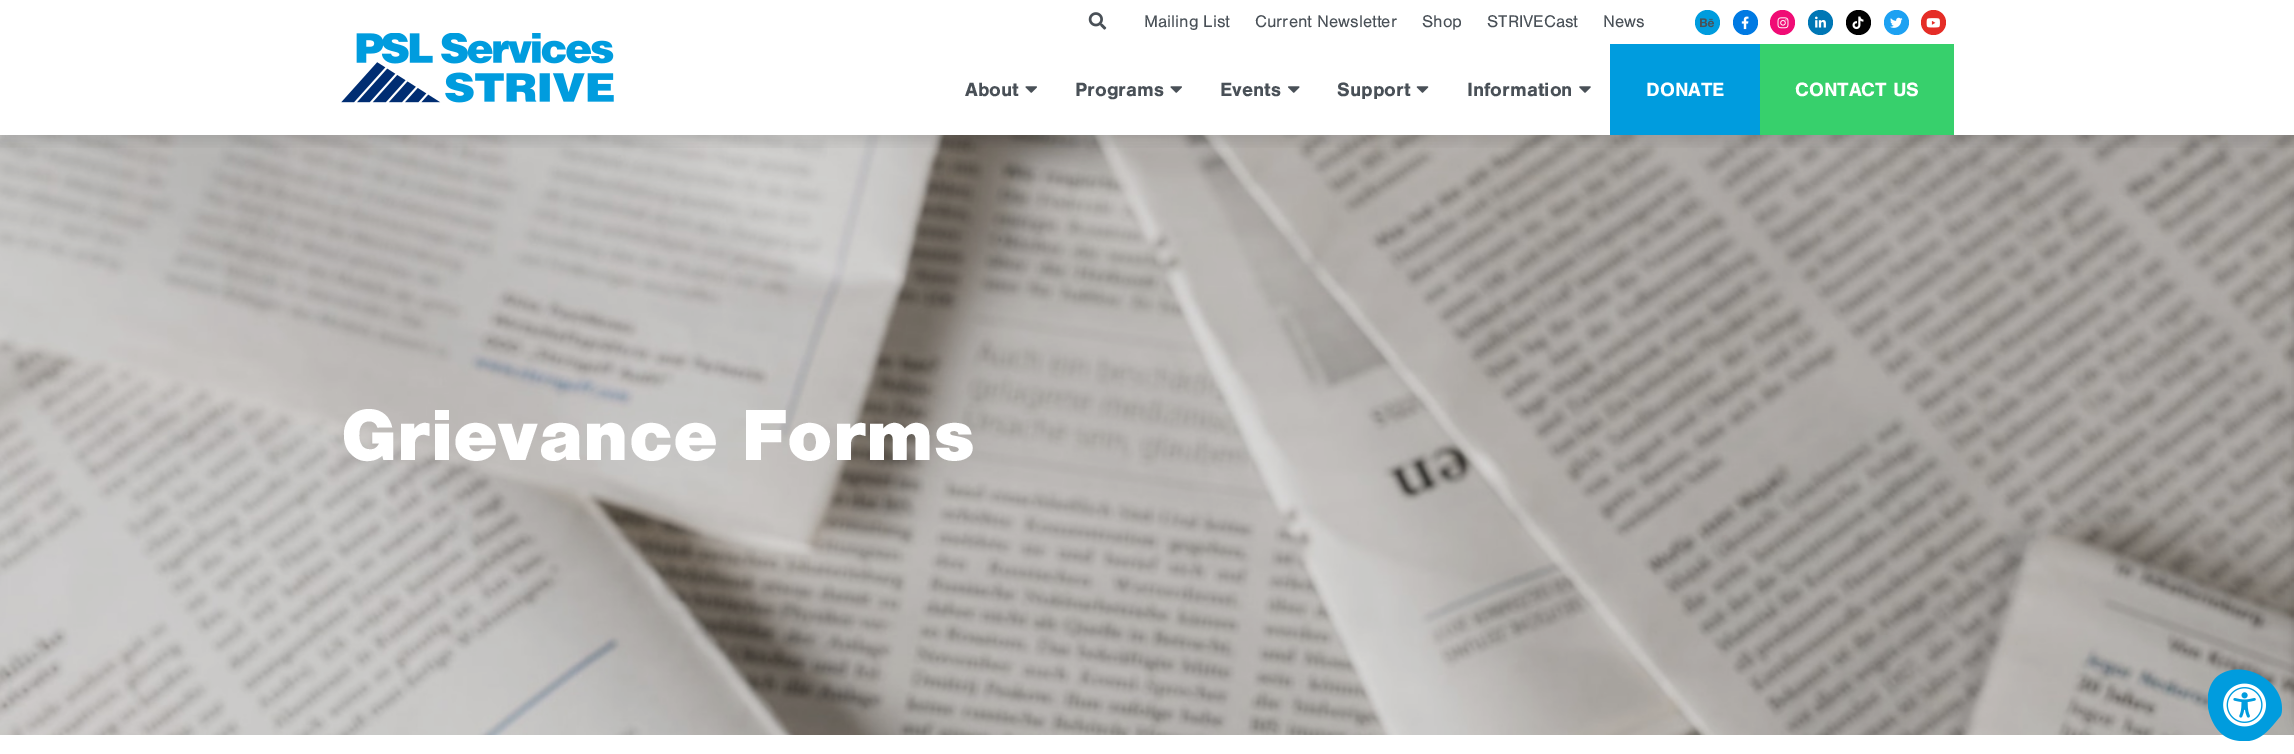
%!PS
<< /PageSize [2294 754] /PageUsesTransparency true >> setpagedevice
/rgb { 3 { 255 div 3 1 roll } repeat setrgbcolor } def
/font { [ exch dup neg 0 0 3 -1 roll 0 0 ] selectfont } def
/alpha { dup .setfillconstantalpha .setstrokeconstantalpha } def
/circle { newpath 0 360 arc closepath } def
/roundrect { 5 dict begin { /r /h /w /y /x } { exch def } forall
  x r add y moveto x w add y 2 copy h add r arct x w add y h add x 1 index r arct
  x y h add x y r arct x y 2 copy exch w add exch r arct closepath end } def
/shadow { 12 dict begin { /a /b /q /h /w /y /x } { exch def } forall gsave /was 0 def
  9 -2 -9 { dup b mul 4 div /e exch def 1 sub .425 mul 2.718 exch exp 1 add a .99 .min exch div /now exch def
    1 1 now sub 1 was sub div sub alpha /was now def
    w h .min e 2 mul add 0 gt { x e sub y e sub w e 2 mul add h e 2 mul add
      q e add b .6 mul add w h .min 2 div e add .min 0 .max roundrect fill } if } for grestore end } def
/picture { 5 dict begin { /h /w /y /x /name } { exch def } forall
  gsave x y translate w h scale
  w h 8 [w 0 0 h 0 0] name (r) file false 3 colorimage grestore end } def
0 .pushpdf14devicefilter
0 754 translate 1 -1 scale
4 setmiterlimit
255 255 255 rgb
0 0 2294 754 rectfill
(img/15.rgb) 0 135 2294 600 picture
gsave
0 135 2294 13 rectclip
0 0 0 rgb
0 8 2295 135 0 6 0.1 shadow
grestore
(img/1.rgb) 341 33 273 70 picture
(img/2.rgb) 1088 12 19 18 picture
0 156 222 rgb
1707.5 22.5 12.5 circle fill
(img/3.rgb) 1700 18 14 10 picture
0 122 227 rgb
1745.5 22.5 12.5 circle fill
(img/4.rgb) 1741 16 8 14 picture
240 12 117 rgb
1782.5 22.5 12.5 circle fill
(img/5.rgb) 1777 17 12 12 picture
0 119 181 rgb
1820.5 22.5 12.5 circle fill
(img/6.rgb) 1815 16 11 12 picture
1 1 1 rgb
1858.5 22.5 12.5 circle fill
(img/7.rgb) 1852 16 12 14 picture
29 161 242 rgb
1896.5 22.5 12.5 circle fill
(img/8.rgb) 1890 17 13 11 picture
229 45 39 rgb
1933.5 22.5 12.5 circle fill
(img/9.rgb) 1926 18 14 10 picture
(img/10.rgb) 1025 86 12 7 picture
(img/10.rgb) 1170 86 12 7 picture
(img/11.rgb) 1288 86 12 7 picture
(img/12.rgb) 1416 86 13 7 picture
(img/13.rgb) 1579 86 12 7 picture
0 156 222 rgb
1610 44 150 91 rectfill
55 208 108 rgb
1760 44 194 91 rectfill
(img/14.rgb) 2208 669 75 72 picture
0 0 0 rgb
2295 178 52 562 38 5 0.24 shadow
/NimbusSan-Regular 17.5 font
73 80 87 rgb
[
  [(Mailing List) 1144 27]
  [(Current Newsletter) 1255 27]
  [(Shop) 1422 27]
  [(STRIVECast) 1487 27]
  [(News) 1603 27]
] { aload pop moveto show } forall
/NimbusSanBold-Bold 20 font
[
  [(About) 965 96]
  [(Programs) 1075 96]
  [(Events) 1220 96]
  [(Support) 1337 96]
  [(Information) 1467 96]
] { aload pop moveto show } forall
255 255 255 rgb
1646 96 moveto (DONATE) show
1795 96 moveto (CONTACT US) show
/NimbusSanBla-Regular 75 font
341 460 moveto (Grievance Forms) show
.poppdf14devicefilter showpage
